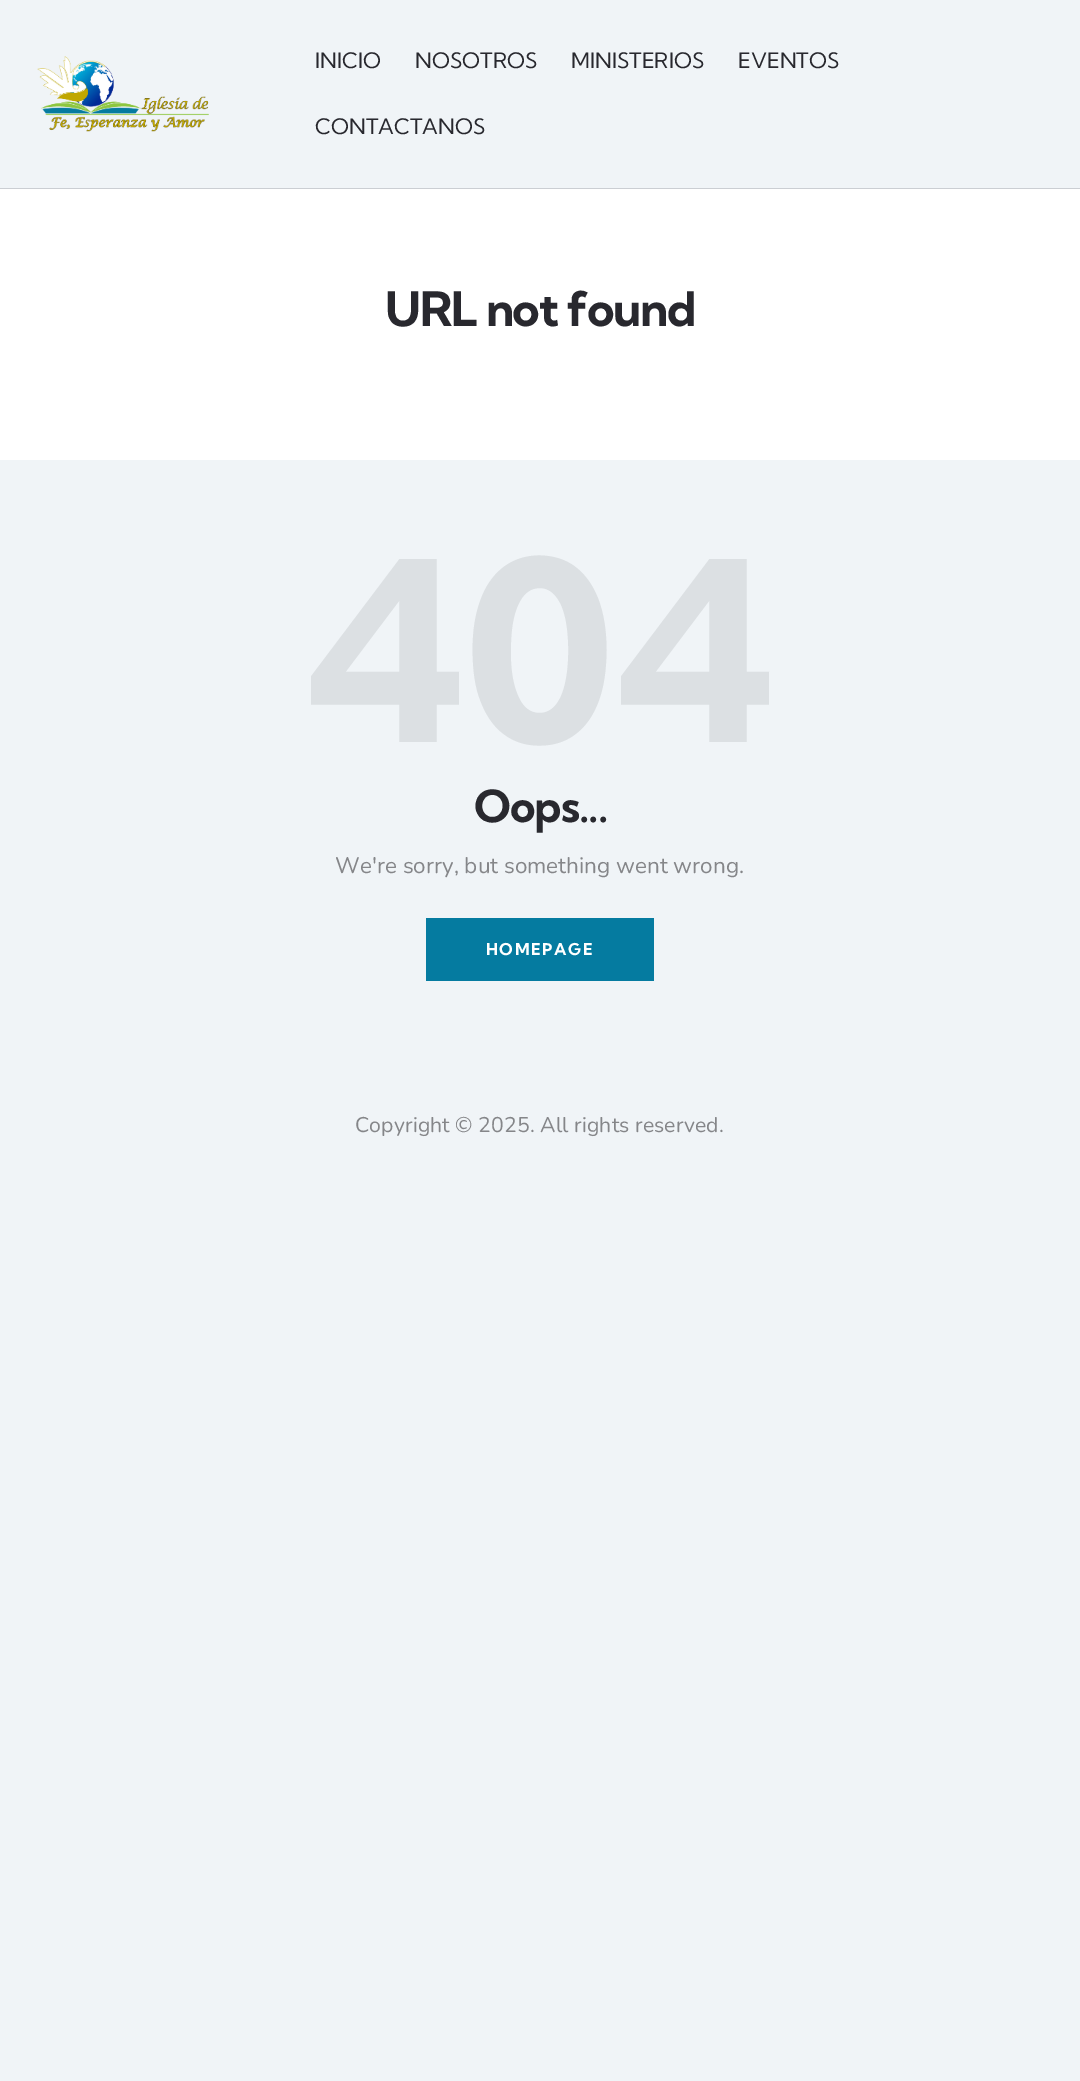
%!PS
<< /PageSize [1080 2081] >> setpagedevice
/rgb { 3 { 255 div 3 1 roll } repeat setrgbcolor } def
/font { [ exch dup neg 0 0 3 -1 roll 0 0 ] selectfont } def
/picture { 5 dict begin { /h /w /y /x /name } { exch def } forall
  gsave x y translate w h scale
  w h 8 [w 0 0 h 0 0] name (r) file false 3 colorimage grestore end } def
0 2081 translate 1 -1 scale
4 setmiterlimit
240 244 247 rgb
0 0 1080 2081 rectfill
203 206 211 rgb
0 188 1080 1 rectfill
(img/1.rgb) 37 56 172 76 picture
255 255 255 rgb
0 189 1080 271 rectfill
5 123 160 rgb
426 918 228 63 rectfill
/KumbhSans-Regular 21.25 font
40 40 46 rgb
[
  [(INICIO) 315 68]
  [(NOSOTROS) 415 68]
  [(MINISTERIOS) 571 68]
  [(EVENTOS) 738 68]
  [(CONTACTANOS) 315 134]
] { aload pop moveto show } forall
/KumbhSans-Bold 47.5 font
385 326 moveto -1.4 0 (URL not found) ashow
/KumbhSans-Bold 250 font
220 224 227 rgb
306 742 moveto (404) show
/KumbhSans-Bold 44 font
40 40 46 rgb
474 822 moveto -1 0 (Oops...) ashow
/Nunito-Regular 22.5 font
133 134 137 rgb
335 873 moveto (We're sorry, but something went wrong.) show
/KumbhSans-Bold 16.25 font
255 255 255 rgb
486 955 moveto 1.5 0 (HOMEPAGE) ashow
/Nunito-Regular 21.25 font
133 134 137 rgb
355 1132 moveto 0.1 0 (Copyright © 2025. All rights reserved.) ashow
showpage
